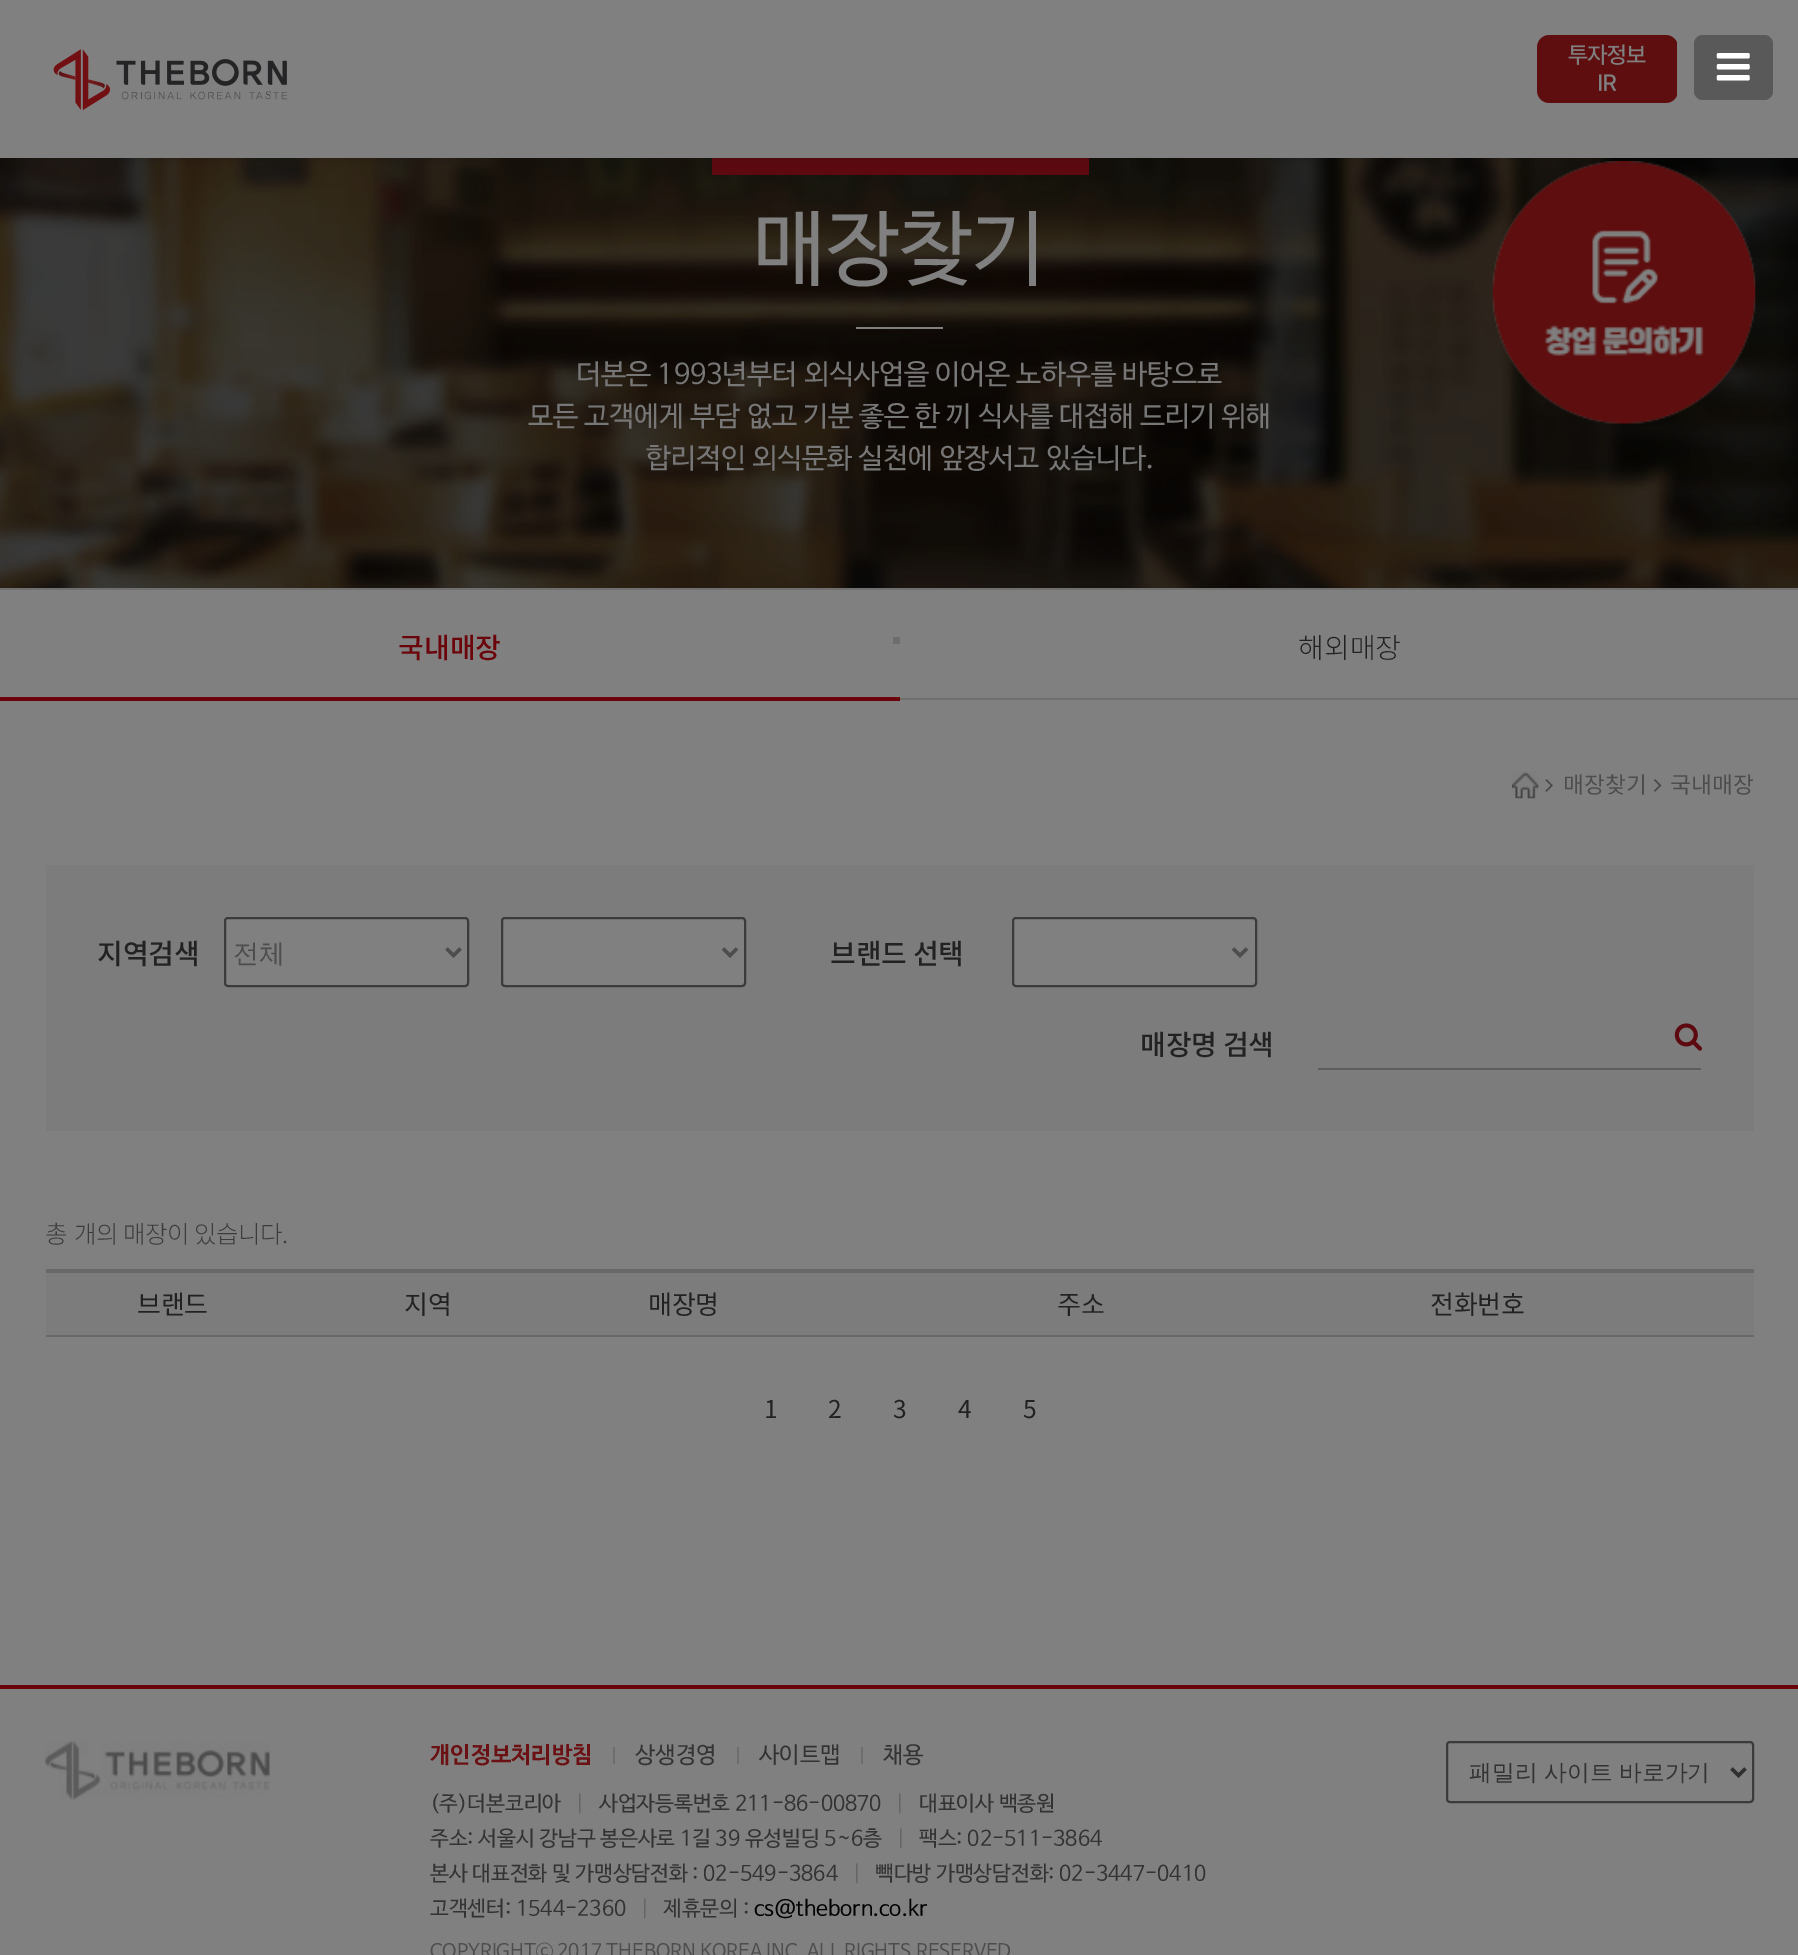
%!PS
<< /PageSize [1798 1955] /PageUsesTransparency true >> setpagedevice
/rgb { 3 { 255 div 3 1 roll } repeat setrgbcolor } def
/font { [ exch dup neg 0 0 3 -1 roll 0 0 ] selectfont } def
/alpha { dup .setfillconstantalpha .setstrokeconstantalpha } def
/roundrect { 5 dict begin { /r /h /w /y /x } { exch def } forall
  x r add y moveto x w add y 2 copy h add r arct x w add y h add x 1 index r arct
  x y h add x y r arct x y 2 copy exch w add exch r arct closepath end } def
/shadow { 12 dict begin { /a /b /q /h /w /y /x } { exch def } forall gsave /was 0 def
  9 -2 -9 { dup b mul 4 div /e exch def 1 sub .425 mul 2.718 exch exp 1 add a .99 .min exch div /now exch def
    1 1 now sub 1 was sub div sub alpha /was now def
    w h .min e 2 mul add 0 gt { x e sub y e sub w e 2 mul add h e 2 mul add
      q e add b .6 mul add w h .min 2 div e add .min 0 .max roundrect fill } if } for grestore end } def
/picture { 5 dict begin { /h /w /y /x /name } { exch def } forall
  gsave x y translate w h scale
  w h 8 [w 0 0 h 0 0] name (r) file false 3 colorimage grestore end } def
0 .pushpdf14devicefilter
0 1955 translate 1 -1 scale
4 setmiterlimit
128 128 128 rgb
0 0 1798 1955 rectfill
(img/5.rgb) 0 158 1798 430 picture
(img/4.rgb) 1492 161 264 263 picture
92 10 16 rgb
712 158 377 17 rectfill
0 0 0 rgb
0 4 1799 157 0 4.5 0.1 shadow
128 128 128 rgb
0 0 1798 158 rectfill
89 89 89 rgb
1694 35 79 65 9 roundrect fill
(img/1.rgb) 1716 53 34 28 picture
(img/2.rgb) 53 49 234 61 picture
(img/3.rgb) 1537 35 140 68 picture
[
  [856 327 87 2 128 128 128]
  [0 1685 1798 4 107 3 10]
  [0 588 1798 2 111 111 111]
  [900 698 898 2 111 111 111]
  [893 637 7 7 109 109 109]
  [0 697 900 4 107 3 10]
] { aload pop rgb rectfill } forall
(img/6.rgb) 1512 772 27 27 picture
(img/7.rgb) 1545 779 8 13 picture
(img/8.rgb) 1654 779 8 13 picture
124 124 124 rgb
46 865 1708 266 rectfill
128 128 128 rgb
225 918 243 68 3 roundrect gsave fill grestore
59 59 59 rgb
2 setlinewidth
stroke
77 77 77 rgb
3.5 setlinewidth
446.5 948.5 moveto 453.5 955.5 lineto 460.5 948.5 lineto stroke
128 128 128 rgb
502 918 243 68 3 roundrect gsave fill grestore
59 59 59 rgb
2 setlinewidth
stroke
77 77 77 rgb
3.5 setlinewidth
723 948.5 moveto 730 955.5 lineto 737 948.5 lineto stroke
128 128 128 rgb
1013 918 243 68 3 roundrect gsave fill grestore
59 59 59 rgb
2 setlinewidth
stroke
77 77 77 rgb
3.5 setlinewidth
1233 948.5 moveto 1240 955.5 lineto 1247 948.5 lineto stroke
(img/9.rgb) 1674 1023 28 28 picture
[
  [1318 1068 383 2 93 93 93]
  [46 1273 1708 62 124 124 124]
  [46 1269 1708 4 104 104 104]
  [46 1335 1708 2 104 104 104]
] { aload pop rgb rectfill } forall
(img/10.rgb) 45 1741 225 59 picture
59 59 59 rgb
2 setlinewidth
1447 1742 306 60 3 roundrect stroke
48 48 48 rgb
3.5 setlinewidth
1731.5 1768.5 moveto 1738.5 1775.5 lineto 1745.5 1768.5 lineto stroke
/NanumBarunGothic-Regular 82 font
128 128 128 rgb
753 275 moveto (매장찾기) show
/NanumBarunGothic-Regular 28 font
119 119 119 rgb
[
  [(더본은 1993년부터 외식사업을 이어온 노하우를 바탕으로) 576 383]
  [(모든 고객에게 부담 없고 기분 좋은 한 끼 식사를 대접해 드리기 위해) 528 425]
  [(합리적인 외식문화 실천에 앞장서고 있습니다.) 646 467]
] { aload pop moveto show } forall
/NotoSansKR-Medium 28 font
107 3 10 rgb
398 658 moveto (국내매장) show
/NotoSansKR-Light 28 font
34 34 34 rgb
1298 658 moveto (해외매장) show
/NotoSansKR-Regular 22.75 font
77 77 77 rgb
1563 793 moveto (매장찾기) show
1670 793 moveto (국내매장) show
/NotoSansKR-Medium 28 font
34 34 34 rgb
97 964 moveto -0.25 0 (지역검색) ashow
/WenQuanYiZenHei-Medium 26 font
77 77 77 rgb
233 962 moveto -0.25 0 (전체) ashow
/NotoSansKR-Medium 28 font
34 34 34 rgb
830 964 moveto -0.25 0 (브랜드 선택) ashow
1140 1055 moveto -0.25 0 (매장명 검색) ashow
/NotoSansKR-Light 24.5 font
60 60 60 rgb
45 1243 moveto -0.5 0 (총) ashow
74 1243 moveto -0.5 0 (개의 매장이 있습니다.) ashow
/NotoSansKR-Regular 26 font
34 34 34 rgb
137 1314 moveto -0.25 0 (브랜드) ashow
404 1314 moveto -0.25 0 (지역) ashow
648 1314 moveto -0.25 0 (매장명) ashow
1057 1314 moveto -0.25 0 (주소) ashow
1430 1314 moveto -0.25 0 (전화번호) ashow
/NotoSansKR-Regular 24.5 font
764 1418 moveto -1 0 (1) ashow
828 1418 moveto -1 0 (2) ashow
893 1418 moveto -1 0 (3) ashow
958 1418 moveto -1 0 (4) ashow
1023 1418 moveto -1 0 (5) ashow
/NanumBarunGothic-Bold 22.75 font
107 16 19 rgb
430 1762 moveto (개인정보처리방침) show
/NanumBarunGothic-Regular 18 font
102 102 102 rgb
610 1761 moveto (|) show
/NanumBarunGothic-Regular 22.75 font
51 51 51 rgb
635 1762 moveto (상생경영) show
/NanumBarunGothic-Regular 18 font
102 102 102 rgb
734 1761 moveto (|) show
/NanumBarunGothic-Regular 22.75 font
51 51 51 rgb
759 1762 moveto (사이트맵) show
/NanumBarunGothic-Regular 18 font
102 102 102 rgb
858 1761 moveto (|) show
/NanumBarunGothic-Regular 22.75 font
51 51 51 rgb
883 1762 moveto (채용) show
/NanumBarunGothic-Regular 21 font
430 1810 moveto (\(주\)더본코리아) show
102 102 102 rgb
575 1810 moveto (|) show
51 51 51 rgb
599 1810 moveto (사업자등록번호 211-86-00870) show
102 102 102 rgb
895 1810 moveto (|) show
51 51 51 rgb
919 1810 moveto (대표이사 백종원) show
430 1845 moveto (주소: 서울시 강남구 봉은사로 1길 39 유성빌딩 5~6층) show
102 102 102 rgb
896 1845 moveto (|) show
51 51 51 rgb
919 1845 moveto (팩스: 02-511-3864) show
430 1880 moveto (본사 대표전화 및 가맹상담전화 : 02-549-3864) show
102 102 102 rgb
852 1880 moveto (|) show
51 51 51 rgb
875 1880 moveto (빽다방 가맹상담전화: 02-3447-0410) show
430 1915 moveto (고객센터: 1544-2360) show
102 102 102 rgb
640 1915 moveto (|) show
51 51 51 rgb
663 1915 moveto (제휴문의 :) show
0 0 0 rgb
754 1915 moveto (cs@theborn.co.kr) show
/NanumBarunGothic-Regular 19.25 font
77 77 77 rgb
430 1957 moveto (COPYRIGHTⓒ 2017 THEBORN KOREA INC. ALL RIGHTS RESERVED) show
/WenQuanYiZenHei-Medium 22.75 font
51 51 51 rgb
1469 1780 moveto (패밀리 사이트 바로가기) show
.poppdf14devicefilter showpage
